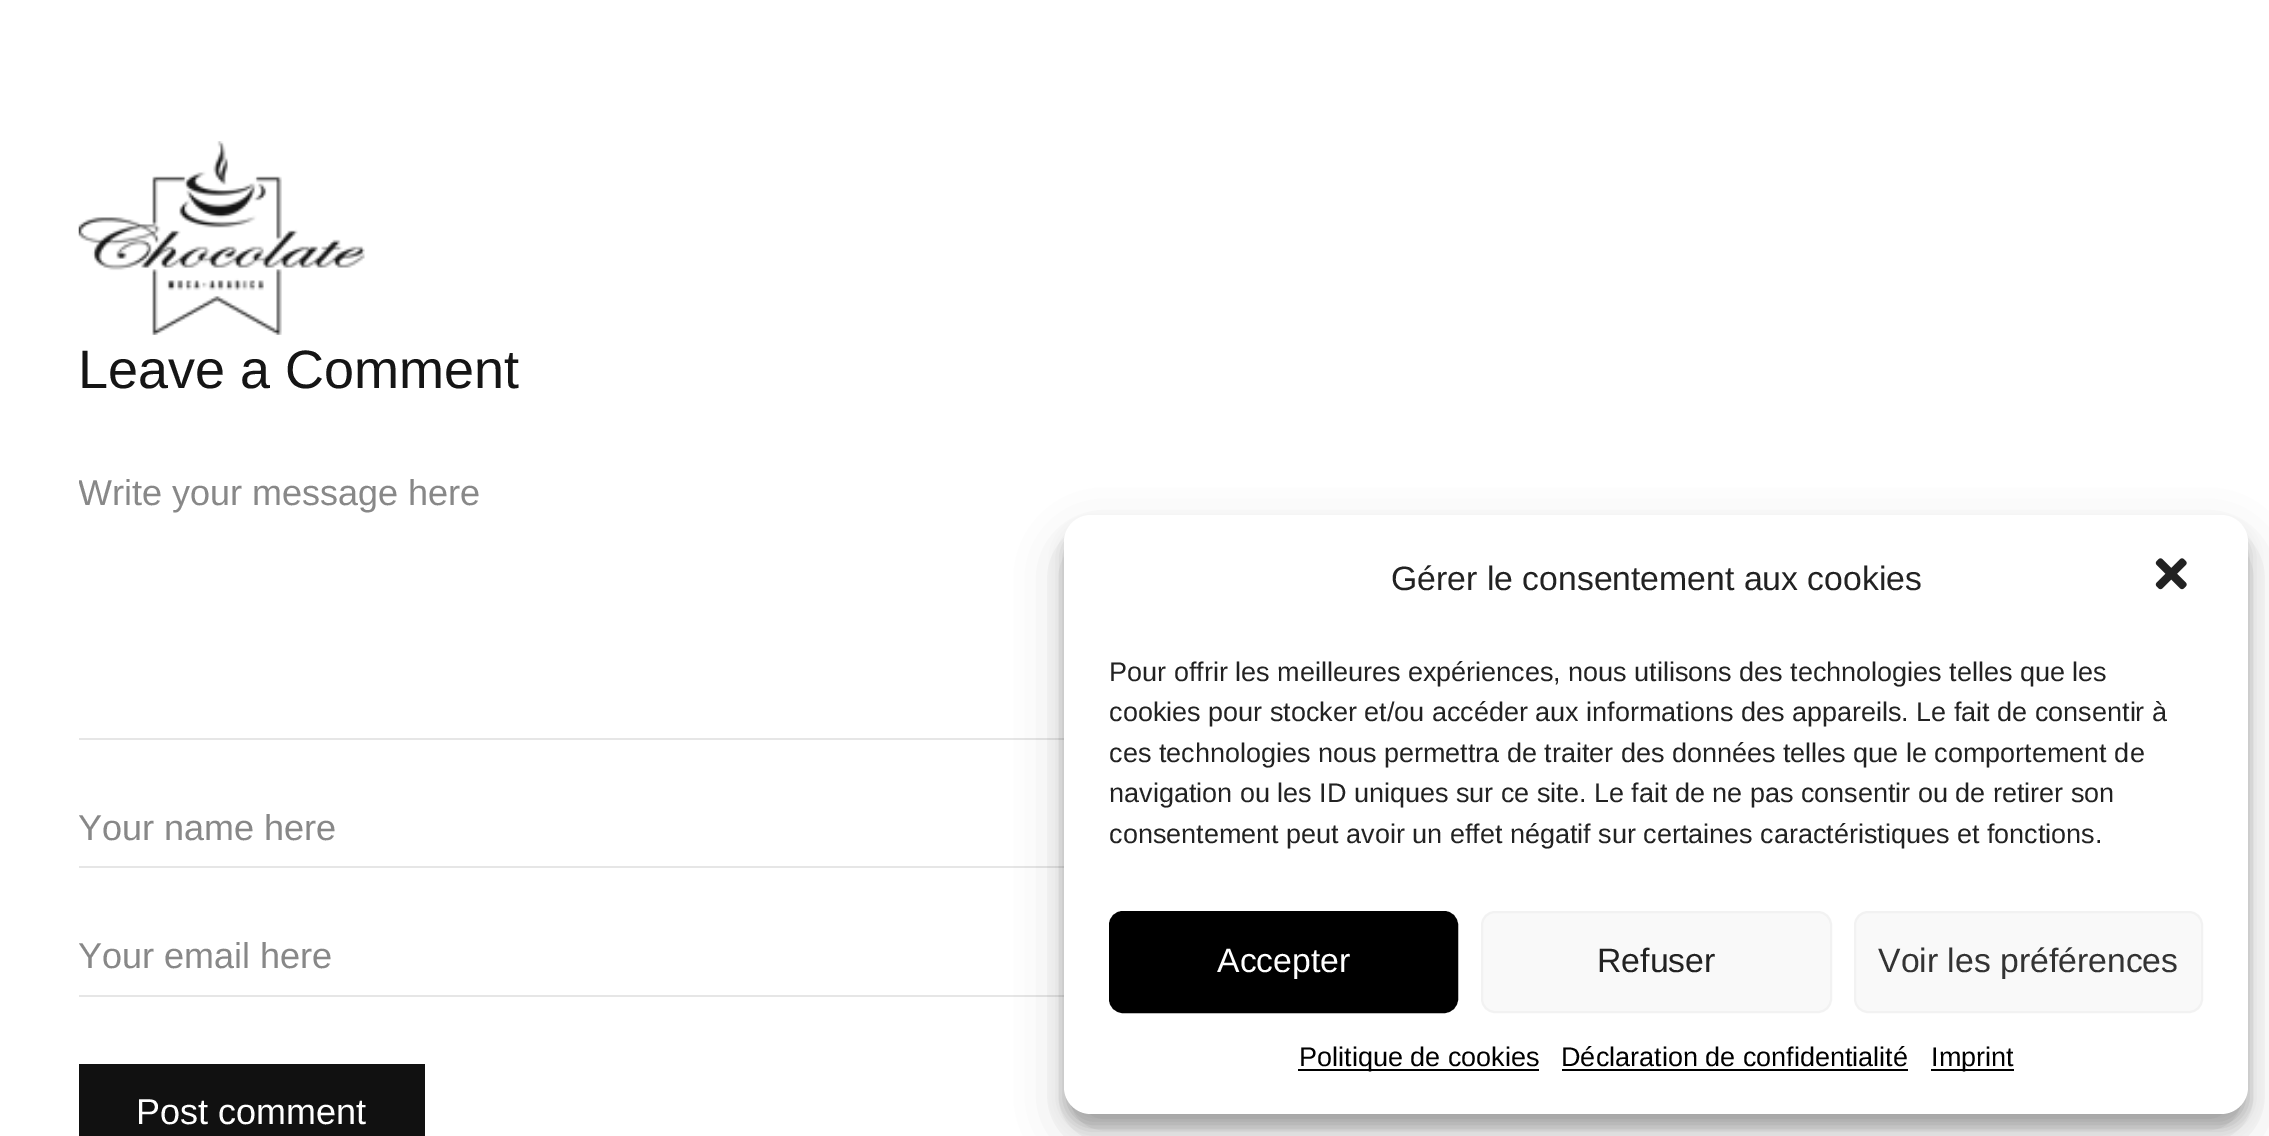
%!PS
<< /PageSize [2269 1136] /PageUsesTransparency true >> setpagedevice
/rgb { 3 { 255 div 3 1 roll } repeat setrgbcolor } def
/font { [ exch dup neg 0 0 3 -1 roll 0 0 ] selectfont } def
/alpha { dup .setfillconstantalpha .setstrokeconstantalpha } def
/roundrect { 5 dict begin { /r /h /w /y /x } { exch def } forall
  x r add y moveto x w add y 2 copy h add r arct x w add y h add x 1 index r arct
  x y h add x y r arct x y 2 copy exch w add exch r arct closepath end } def
/shadow { 12 dict begin { /a /b /q /h /w /y /x } { exch def } forall gsave /was 0 def
  9 -2 -9 { dup b mul 4 div /e exch def 1 sub .425 mul 2.718 exch exp 1 add a .99 .min exch div /now exch def
    1 1 now sub 1 was sub div sub alpha /was now def
    w h .min e 2 mul add 0 gt { x e sub y e sub w e 2 mul add h e 2 mul add
      q e add b .6 mul add w h .min 2 div e add .min 0 .max roundrect fill } if } for grestore end } def
/picture { 5 dict begin { /h /w /y /x /name } { exch def } forall
  gsave x y translate w h scale
  w h 8 [w 0 0 h 0 0] name (r) file false 3 colorimage grestore end } def
0 .pushpdf14devicefilter
0 1136 translate 1 -1 scale
4 setmiterlimit
255 255 255 rgb
0 0 2269 1136 rectfill
(img/1.rgb) 78 141 287 194 picture
[
  [79 738 985 2 230 230 230]
  [79 866 985 2 230 230 230]
  [79 995 985 2 230 230 230]
  [79 1064 346 72 17 17 17]
] { aload pop rgb rectfill } forall
0 0 0 rgb
1064 529 1184 598 27 7 0.23 shadow
1064 538 1184 598 27 22.5 0.19 shadow
255 255 255 rgb
1064 515 1184 599 27 roundrect fill
(img/2.rgb) 2155 558 32 32 picture
0 0 0 rgb
1110 912 347 100 13 roundrect gsave fill grestore
2 setlinewidth
stroke
249 249 249 rgb
1482 912 349 100 13 roundrect gsave fill grestore
242 242 242 rgb
stroke
249 249 249 rgb
1855 912 347 100 13 roundrect gsave fill grestore
242 242 242 rgb
stroke
[
  [1298 1069 241 2 0 0 0]
  [1562 1069 346 2 0 0 0]
  [1931 1069 83 2 0 0 0]
] { aload pop rgb rectfill } forall
/LiberationSans-Regular 54 font
21 21 21 rgb
78 388 moveto (Leave a Comment) show
gsave
79 468 2115 270 rectclip
/LiberationSans-Regular 36 font
136 136 136 rgb
78 505 moveto (Write your message here) show
grestore
/LiberationSans-Regular 36 font
136 136 136 rgb
78 840 moveto (Your name here) show
78 968 moveto (Your email here) show
255 255 255 rgb
136 1124 moveto (Post comment) show
/LiberationSans-Regular 33.75 font
34 34 34 rgb
1391 590 moveto (Gérer le consentement aux cookies) show
/LiberationSans-Regular 27 font
[
  [(Pour offrir les meilleures expériences, nous utilisons des technologies telles que les) 1109 681]
  [(cookies pour stocker et/ou accéder aux informations des appareils. Le fait de consentir à) 1109 721]
  [(ces technologies nous permettra de traiter des données telles que le comportement de) 1109 762]
  [(navigation ou les ID uniques sur ce site. Le fait de ne pas consentir ou de retirer son) 1109 802]
  [(consentement peut avoir un effet négatif sur certaines caractéristiques et fonctions.) 1109 843]
] { aload pop moveto show } forall
/LiberationSans-Regular 33.75 font
255 255 255 rgb
1217 972 moveto (Accepter) show
34 34 34 rgb
1597 972 moveto (Refuser) show
51 51 51 rgb
1878 972 moveto (Voir les préférences) show
/LiberationSans-Regular 27 font
0 0 0 rgb
[
  [(Politique de cookies) 1299 1066]
  [(Déclaration de confidentialité) 1561 1066]
  [(Imprint) 1931 1066]
] { aload pop moveto show } forall
.poppdf14devicefilter showpage
